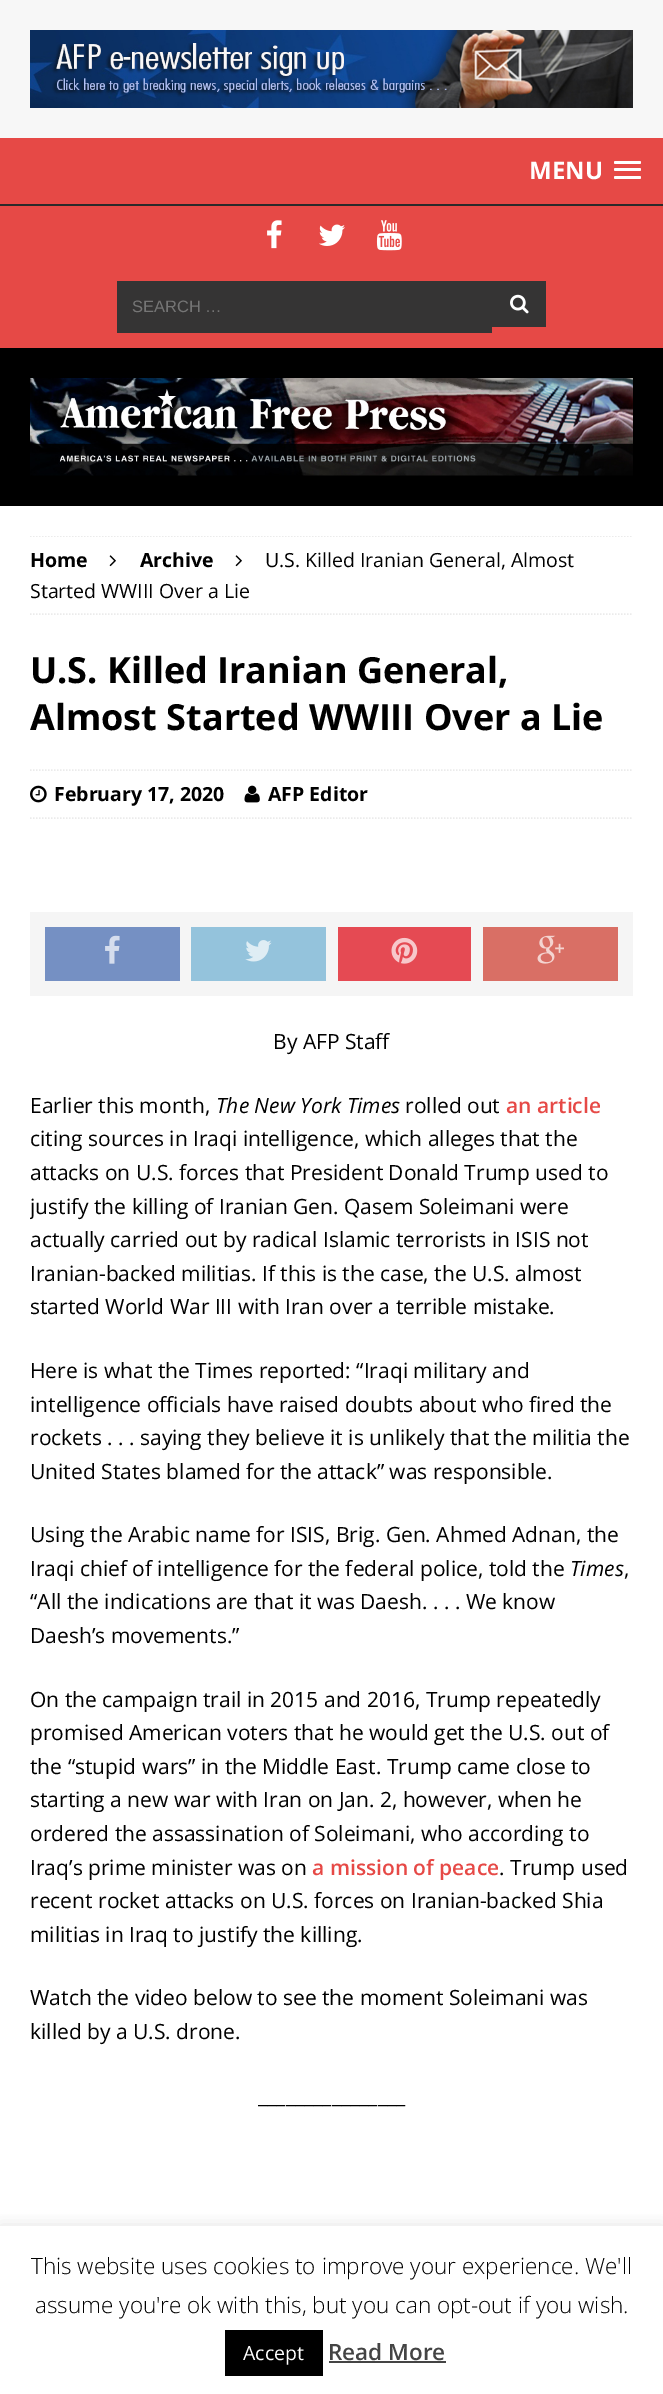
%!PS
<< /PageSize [663 2394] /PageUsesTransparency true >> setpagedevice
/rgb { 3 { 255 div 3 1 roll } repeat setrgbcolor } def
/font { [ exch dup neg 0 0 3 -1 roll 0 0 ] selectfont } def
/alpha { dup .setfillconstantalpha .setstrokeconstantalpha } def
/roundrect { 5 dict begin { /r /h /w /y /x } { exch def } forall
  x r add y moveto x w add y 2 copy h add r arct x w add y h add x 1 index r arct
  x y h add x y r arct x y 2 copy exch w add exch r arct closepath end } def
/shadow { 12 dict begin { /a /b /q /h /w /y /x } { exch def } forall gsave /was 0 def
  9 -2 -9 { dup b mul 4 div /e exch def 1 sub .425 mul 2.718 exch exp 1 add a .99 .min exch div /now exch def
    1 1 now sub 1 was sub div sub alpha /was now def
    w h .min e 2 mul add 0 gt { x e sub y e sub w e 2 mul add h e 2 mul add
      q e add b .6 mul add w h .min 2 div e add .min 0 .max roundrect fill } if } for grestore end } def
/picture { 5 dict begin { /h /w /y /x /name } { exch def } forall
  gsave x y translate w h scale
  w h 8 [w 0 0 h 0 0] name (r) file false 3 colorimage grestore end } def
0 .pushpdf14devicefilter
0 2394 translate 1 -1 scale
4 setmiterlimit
247 247 247 rgb
0 0 663 2394 rectfill
(img/1.rgb) 30 30 603 78 picture
230 73 70 rgb
0 138 663 66 rectfill
42 42 42 rgb
0 204 663 2 rectfill
255 255 255 rgb
614 161 27 3 1.5 roundrect fill
614 168 27 3 1.5 roundrect fill
614 176 27 3 1.5 roundrect fill
230 73 70 rgb
0 206 663 142 rectfill
(img/2.rgb) 267 220 15 29 picture
(img/3.rgb) 319 224 26 22 picture
(img/4.rgb) 376 220 26 31 picture
53 52 52 rgb
117 281 375 52 rectfill
492 281 54 46 rectfill
(img/5.rgb) 510 294 19 20 picture
0 0 0 rgb
0 348 663 158 rectfill
(img/6.rgb) 30 378 603 98 picture
255 255 255 rgb
0 506 663 1888 rectfill
gsave
30 536 603 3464 rectclip
235 235 235 rgb
1.5 setlinewidth
[1.5 1.5] 0 setdash
30 536 moveto 633 536 lineto stroke
grestore
235 235 235 rgb
1.5 setlinewidth
[1.5 1.5] 0 setdash
30 614 moveto 633 614 lineto stroke
(img/7.rgb) 109 555 7 12 picture
(img/7.rgb) 235 555 7 12 picture
30 770 moveto 633 770 lineto stroke
30 818 moveto 633 818 lineto stroke
(img/8.rgb) 30 785 17 18 picture
(img/9.rgb) 244 785 16 18 picture
245 245 245 rgb
30 912 603 84 rectfill
117 144 195 rgb
45 927 135 54 rectfill
(img/10.rgb) 105 935 15 29 picture
148 195 220 rgb
191 927 135 54 rectfill
(img/11.rgb) 245 940 27 22 picture
229 74 83 rgb
338 927 133 54 rectfill
(img/12.rgb) 391 937 27 27 picture
217 111 101 rgb
483 927 135 54 rectfill
(img/13.rgb) 537 935 27 29 picture
gsave
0 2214 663 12 rectclip
172 171 171 rgb
0 2225 663 168 0 7.5 0.3 shadow
grestore
0 0 0 rgb
225 2330 98 46 rectfill
68 68 68 rgb
329 2361 117 2 rectfill
/OpenSans-Bold 24 font
255 255 255 rgb
529 179 moveto (MENU) show
/LiberationSans-Regular 16.5 font
117 117 117 rgb
132 312 moveto (SEARCH …) show
/OpenSans-Bold 19.5 font
0 0 0 rgb
30 567 moveto (Home) show
140 567 moveto (Archive) show
/OpenSans-Regular 19.5 font
265 567 moveto (U.S. Killed Iranian General, Almost) show
30 598 moveto (Started WWIII Over a Lie) show
/OpenSans-Bold 36 font
30 683 moveto (U.S. Killed Iranian General,) show
30 730 moveto (Almost Started WWIII Over a Lie) show
/OpenSans-Bold 19.5 font
54 801 moveto (February 17, 2020) show
268 801 moveto (AFP Editor) show
/OpenSans-Regular 21 font
273 1049 moveto (By AFP Staff) show
30 1113 moveto (Earlier this month,) show
/OpenSans-Italic 21 font
216 1113 moveto (The New York Times) show
/OpenSans-Regular 21 font
405 1113 moveto (rolled out) show
/OpenSans-SemiBold 21 font
230 73 70 rgb
506 1113 moveto (an article) show
/OpenSans-Regular 21 font
0 0 0 rgb
30 1146 moveto (citing sources in Iraqi intelligence, which alleges that the) show
30 1180 moveto (attacks on U.S. forces that President Donald Trump used to) show
gsave
30 536 603 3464 rectclip
30 1214 moveto (justify the killing of Iranian Gen. Qasem Soleimani were) show
grestore
[
  [(actually carried out by radical Islamic terrorists in ISIS not) 30 1247]
  [(Iranian-backed militias. If this is the case, the U.S. almost) 30 1281]
  [(started World War III with Iran over a terrible mistake.) 30 1314]
  [(Here is what the Times reported: “Iraqi military and) 30 1378]
  [(intelligence officials have raised doubts about who fired the) 30 1412]
  [(rockets . . . saying they believe it is unlikely that the militia the) 30 1445]
  [(United States blamed for the attack” was responsible.) 30 1479]
  [(Using the Arabic name for ISIS, Brig. Gen. Ahmed Adnan, the) 30 1542]
  [(Iraqi chief of intelligence for the federal police, told the) 30 1576]
] { aload pop moveto show } forall
/OpenSans-Italic 21 font
570 1576 moveto (Times) show
/OpenSans-Regular 21 font
[
  [(,) 624 1576]
  [(“All the indications are that it was Daesh. . . . We know) 30 1609]
  [(Daesh’s movements.”) 30 1643]
  [(On the campaign trail in 2015 and 2016, Trump repeatedly) 30 1707]
  [(promised American voters that he would get the U.S. out of) 30 1740]
  [(the “stupid wars” in the Middle East. Trump came close to) 30 1774]
  [(starting a new war with Iran on Jan. 2, however, when he) 30 1807]
  [(ordered the assassination of Soleimani, who according to) 30 1841]
  [(Iraq’s prime minister was on) 30 1875]
] { aload pop moveto show } forall
/OpenSans-SemiBold 21 font
230 73 70 rgb
312 1875 moveto (a mission of peace) show
/OpenSans-Regular 21 font
0 0 0 rgb
[
  [(. Trump used) 499 1875]
  [(recent rocket attacks on U.S. forces on Iranian-backed Shia) 30 1908]
  [(militias in Iraq to justify the killing.) 30 1942]
  [(Watch the video below to see the moment Soleimani was) 30 2005]
  [(killed by a U.S. drone.) 30 2039]
  [(________________) 258 2103]
] { aload pop moveto show } forall
/OpenSans-Light 22.5 font
31 2274 moveto (This website uses cookies to improve your experience. We'll) show
35 2313 moveto (assume you're ok with this, but you can opt-out if you wish.) show
/OpenSans-Regular 19.5 font
255 255 255 rgb
243 2360 moveto (Accept) show
/OpenSans-SemiBold 22.5 font
68 68 68 rgb
328 2360 moveto (Read More) show
.poppdf14devicefilter showpage
